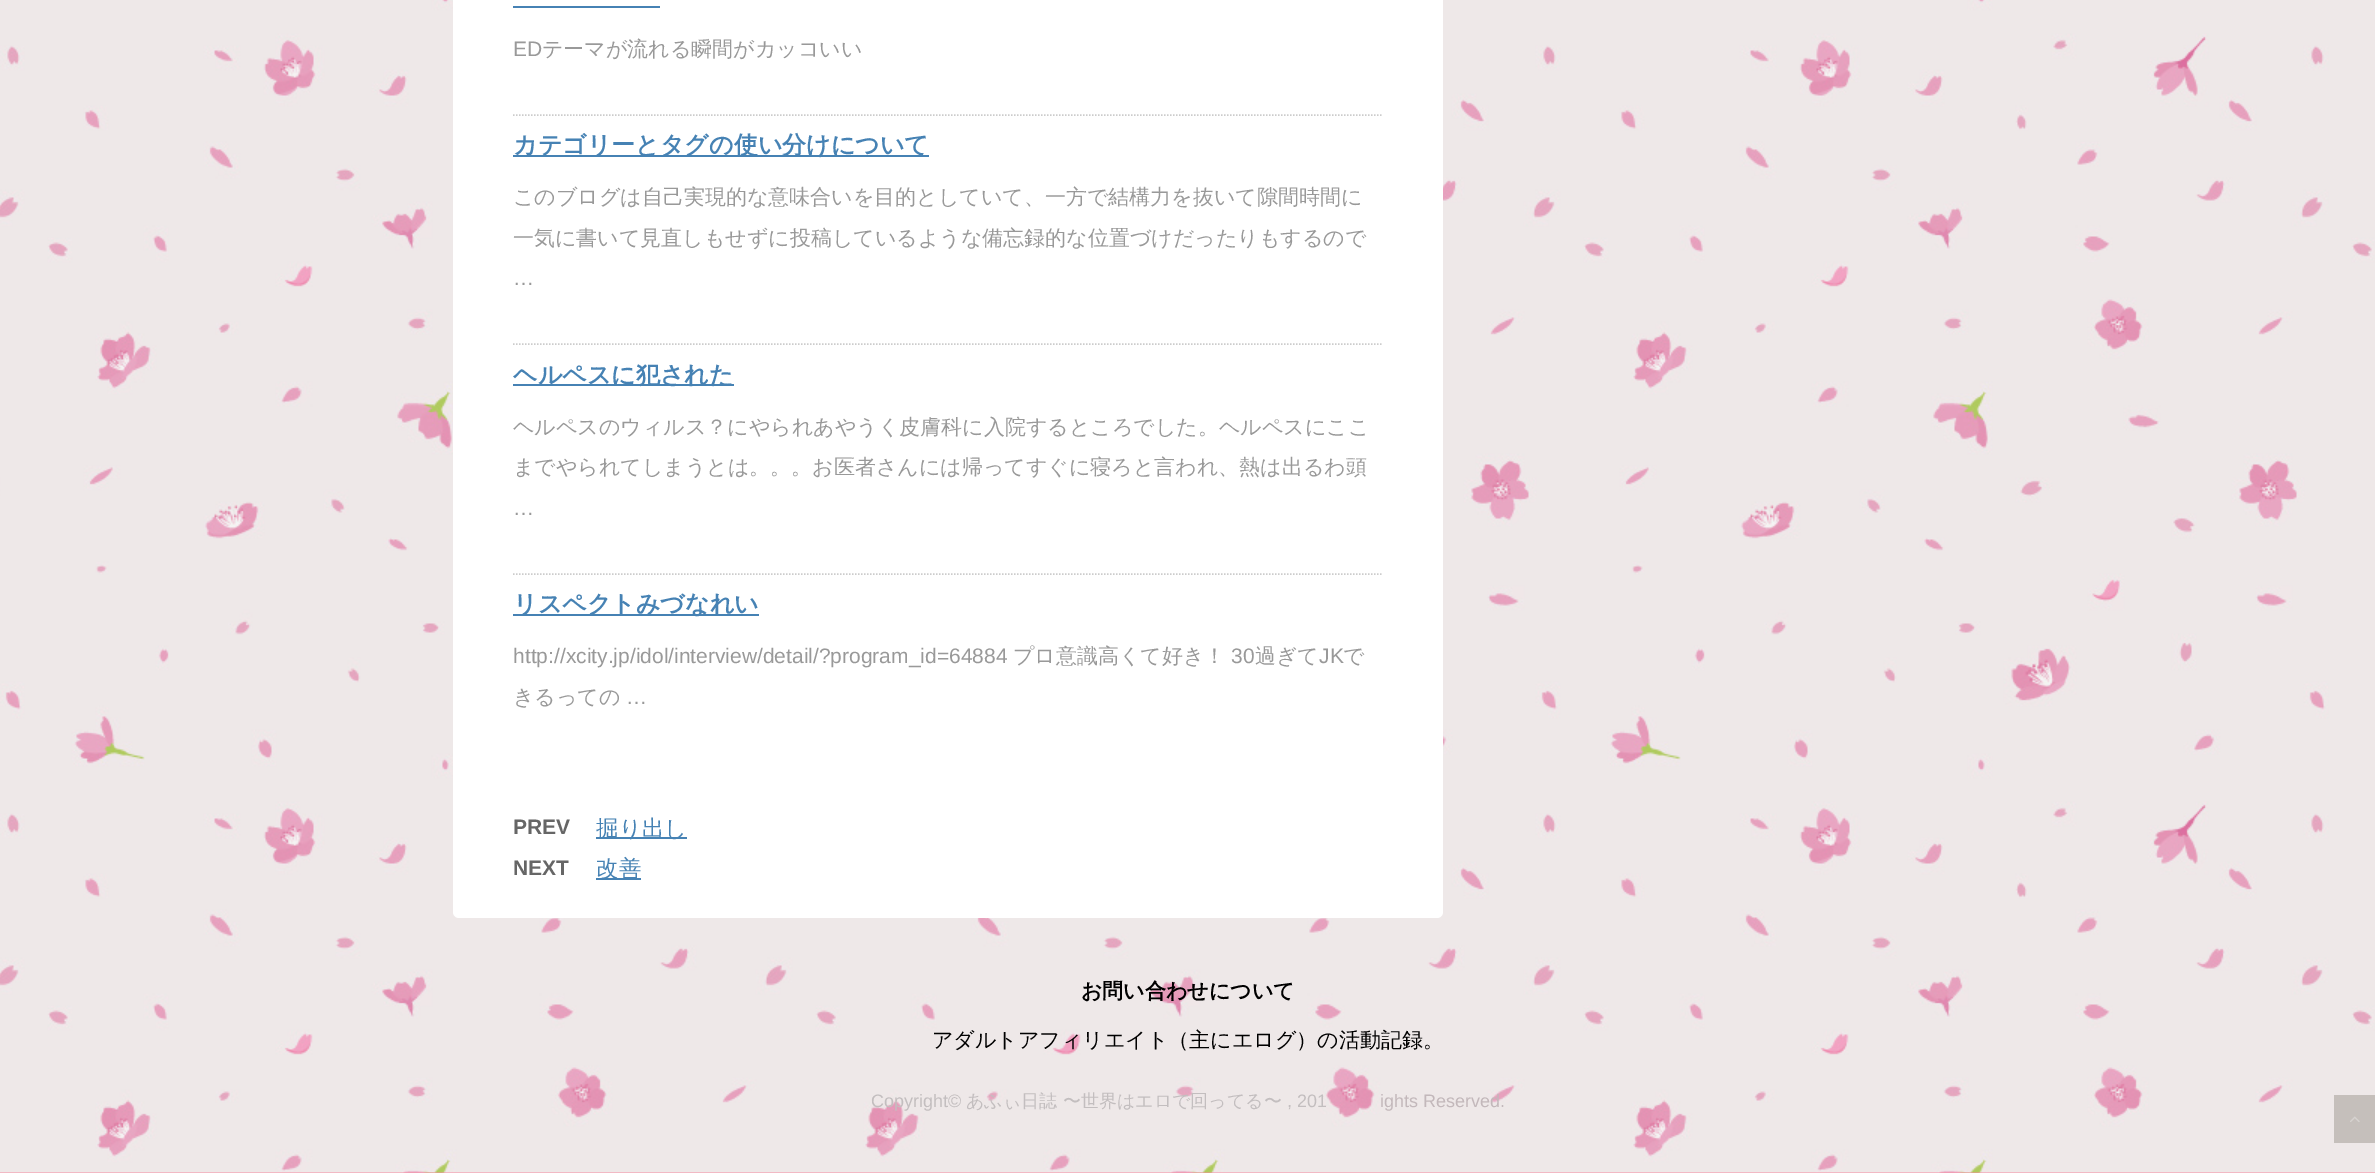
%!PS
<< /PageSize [2375 1173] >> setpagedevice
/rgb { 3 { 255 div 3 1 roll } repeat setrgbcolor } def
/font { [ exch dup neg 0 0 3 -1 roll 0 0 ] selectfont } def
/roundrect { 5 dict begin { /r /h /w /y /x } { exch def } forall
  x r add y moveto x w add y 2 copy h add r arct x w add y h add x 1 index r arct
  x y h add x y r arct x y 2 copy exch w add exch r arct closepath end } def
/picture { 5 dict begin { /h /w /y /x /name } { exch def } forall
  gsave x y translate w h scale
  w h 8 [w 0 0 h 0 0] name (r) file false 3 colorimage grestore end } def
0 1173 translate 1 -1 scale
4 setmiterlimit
247 138 160 rgb
0 0 2375 1173 rectfill
(img/1.rgb) 0 0 2375 1173 picture
255 255 255 rgb
453 -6 990 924 6 roundrect fill
204 204 204 rgb
1.5 setlinewidth
[1.5 1.5] 0 setdash
513 115 moveto 1383 115 lineto stroke
70 130 180 rgb
513 6 147 2 rectfill
204 204 204 rgb
513 344 moveto 1383 344 lineto stroke
70 130 180 rgb
513 155 416 2 rectfill
204 204 204 rgb
513 574 moveto 1383 574 lineto stroke
[
  [513 384 221 2 70 130 180]
  [513 614 246 2 70 130 180]
  [596 837 91 2 70 130 180]
  [596 878 45 2 70 130 180]
  [2334 1095 41 48 197 191 187]
] { aload pop rgb rectfill } forall
(img/2.rgb) 2350 1116 10 6 picture
/LiberationSans-Regular 21 font
153 153 153 rgb
513 56 moveto (ED) show
/WenQuanYiZenHei-Medium 21 font
542 56 moveto (テーマが流れる瞬間がカッコいい) show
/WenQuanYiZenHei-Bold 24 font
70 130 180 rgb
513 153 moveto (カテゴリーとタグの使い分けについて) show
/WenQuanYiZenHei-Medium 21 font
153 153 153 rgb
513 204 moveto (このブログは自己実現的な意味合いを目的としていて、一方で結構力を抜いて隙間時間に) show
513 245 moveto (一気に書いて見直しもせずに投稿しているような備忘録的な位置づけだったりもするので) show
/LiberationSans-Regular 21 font
513 285 moveto (…) show
/WenQuanYiZenHei-Bold 24 font
70 130 180 rgb
513 383 moveto (ヘルペスに犯された) show
/WenQuanYiZenHei-Medium 21 font
153 153 153 rgb
513 434 moveto (ヘルペスのウィルス？にやられあやうく皮膚科に入院するところでした。ヘルペスにここ) show
513 474 moveto (までやられてしまうとは。。。お医者さんには帰ってすぐに寝ろと言われ、熱は出るわ頭) show
/LiberationSans-Regular 21 font
513 515 moveto (…) show
/WenQuanYiZenHei-Bold 24 font
70 130 180 rgb
513 612 moveto (リスペクトみづなれい) show
/LiberationSans-Regular 21 font
153 153 153 rgb
513 663 moveto (http://xcity.jp/idol/interview/detail/?program_id=64884) show
/WenQuanYiZenHei-Medium 21 font
1013 663 moveto (プロ意識高くて好き！) show
/LiberationSans-Regular 21 font
1231 663 moveto (30) show
/WenQuanYiZenHei-Medium 21 font
1255 663 moveto (過ぎて) show
/LiberationSans-Regular 21 font
1319 663 moveto (JK) show
/WenQuanYiZenHei-Medium 21 font
1343 663 moveto (で) show
513 704 moveto (きるっての) show
/LiberationSans-Regular 21 font
626 704 moveto (…) show
/LiberationSans-Bold 21 font
102 102 102 rgb
513 834 moveto (PREV) show
/WenQuanYiZenHei-Medium 22.5 font
70 130 180 rgb
596 836 moveto (掘り出し) show
/LiberationSans-Bold 21 font
102 102 102 rgb
513 875 moveto (NEXT) show
/WenQuanYiZenHei-Medium 22.5 font
70 130 180 rgb
596 876 moveto (改善) show
/WenQuanYiZenHei-Bold 21 font
0 0 0 rgb
1081 998 moveto (お問い合わせについて) show
/WenQuanYiZenHei-Medium 21 font
932 1047 moveto (アダルトアフィリエイト（主にエログ）の活動記録。) show
/LiberationSans-Regular 18 font
195 190 191 rgb
871 1107 moveto (Copyright©) show
/WenQuanYiZenHei-Medium 18 font
966 1107 moveto (あふぃ日誌 〜世界はエロで回ってる〜) show
/LiberationSans-Regular 18 font
1287 1107 moveto (,) show
1297 1107 moveto (201) show
195 184 187 rgb
1380 1107 moveto (ights Reserved.) show
showpage
